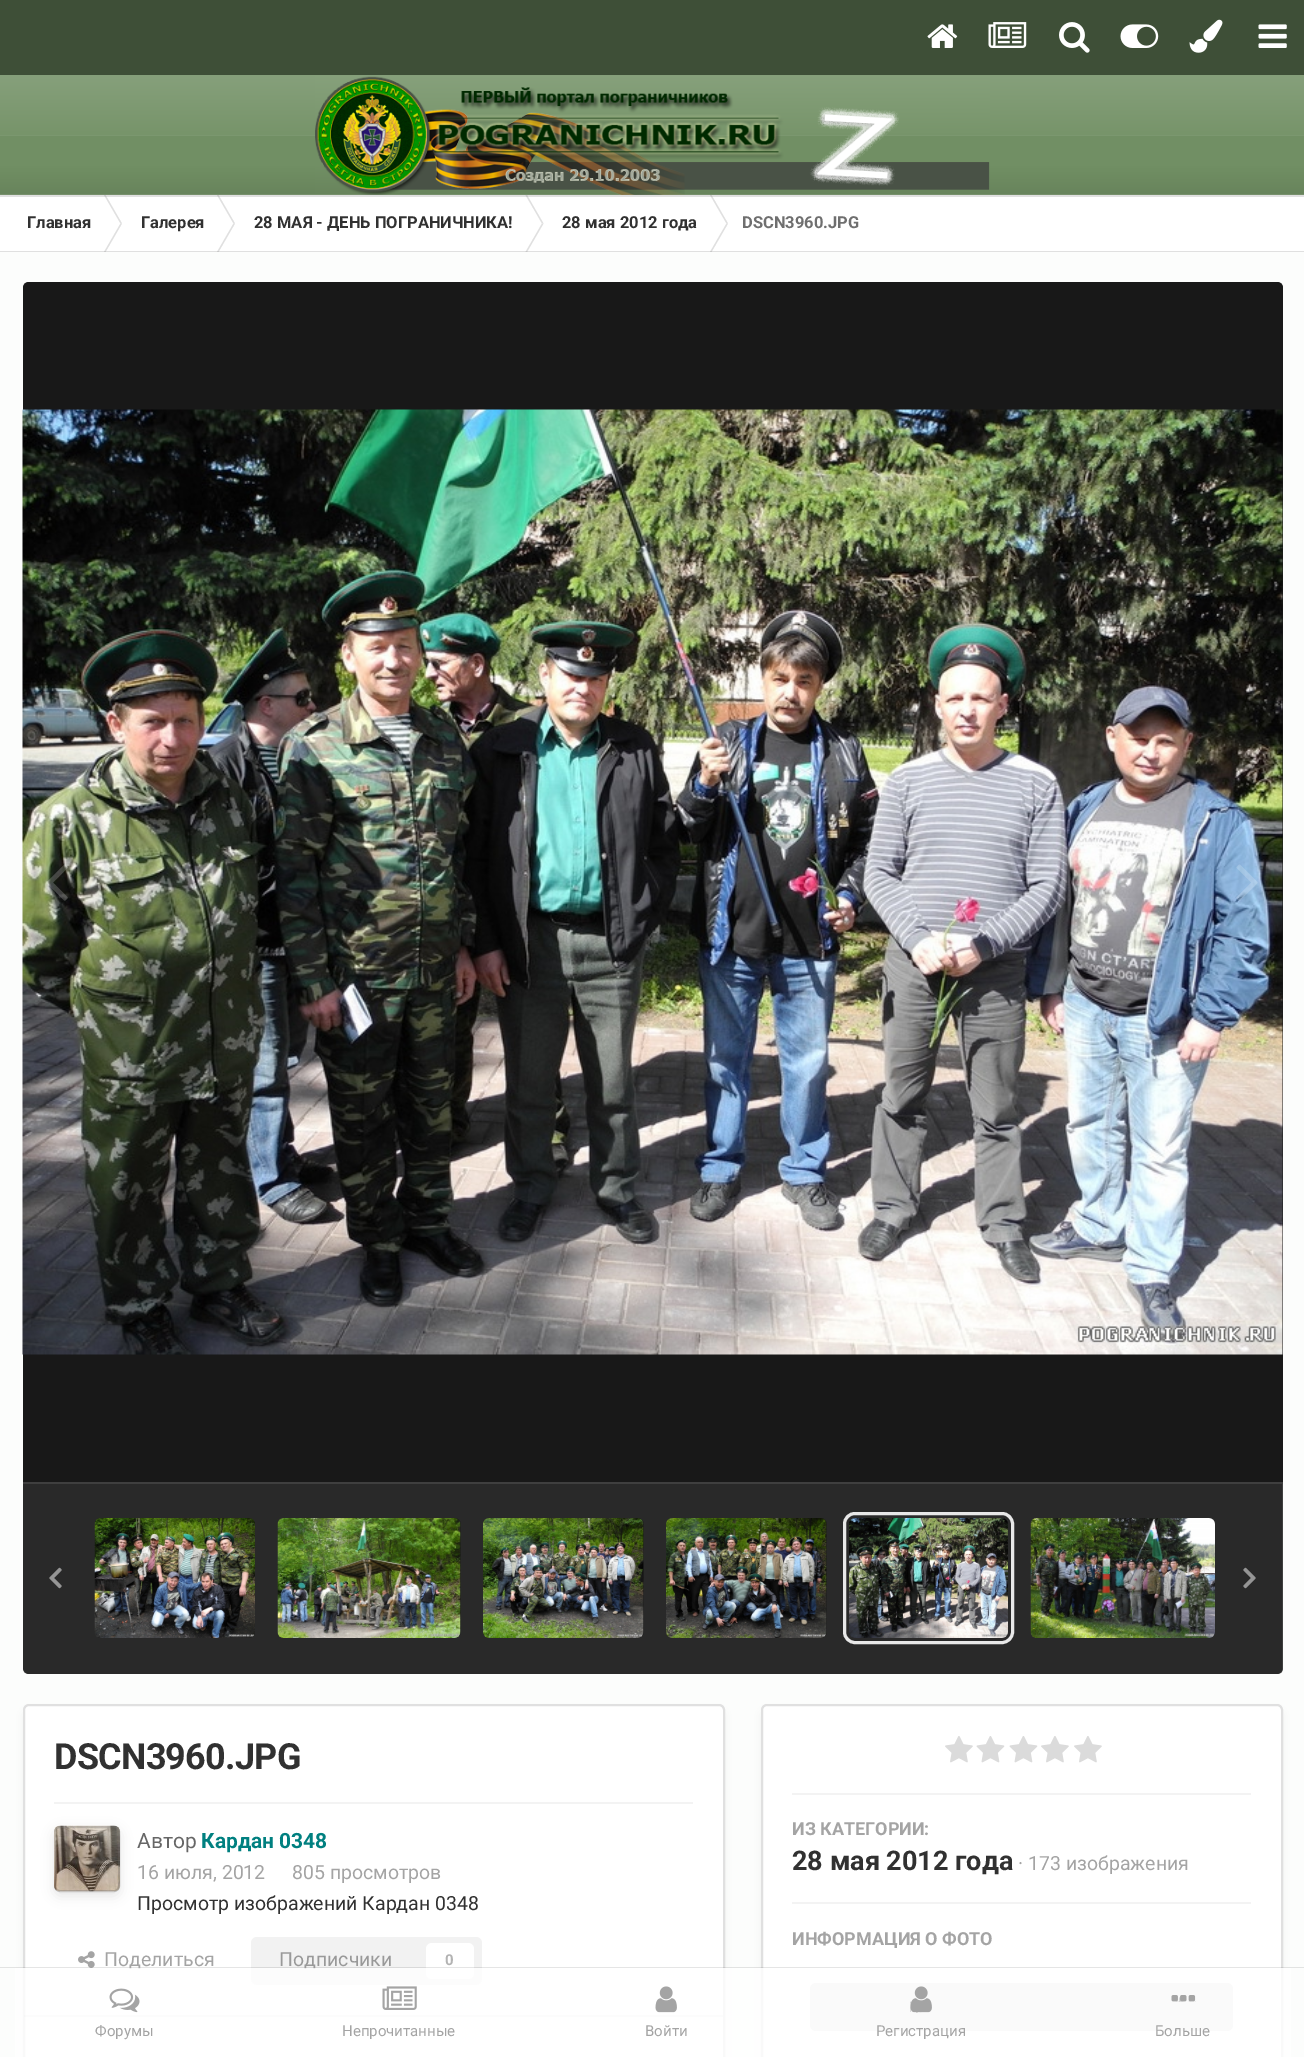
%!PS
<< /PageSize [1304 2057] /PageUsesTransparency true >> setpagedevice
/rgb { 3 { 255 div 3 1 roll } repeat setrgbcolor } def
/font { [ exch dup neg 0 0 3 -1 roll 0 0 ] selectfont } def
/alpha { dup .setfillconstantalpha .setstrokeconstantalpha } def
/roundrect { 5 dict begin { /r /h /w /y /x } { exch def } forall
  x r add y moveto x w add y 2 copy h add r arct x w add y h add x 1 index r arct
  x y h add x y r arct x y 2 copy exch w add exch r arct closepath end } def
/shadow { 12 dict begin { /a /b /q /h /w /y /x } { exch def } forall gsave /was 0 def
  9 -2 -9 { dup b mul 4 div /e exch def 1 sub .425 mul 2.718 exch exp 1 add a .99 .min exch div /now exch def
    1 1 now sub 1 was sub div sub alpha /was now def
    w h .min e 2 mul add 0 gt { x e sub y e sub w e 2 mul add h e 2 mul add
      q e add b .6 mul add w h .min 2 div e add .min 0 .max roundrect fill } if } for grestore end } def
/picture { 5 dict begin { /h /w /y /x /name } { exch def } forall
  gsave x y translate w h scale
  w h 8 [w 0 0 h 0 0] name (r) file false 3 colorimage grestore end } def
0 .pushpdf14devicefilter
0 2057 translate 1 -1 scale
4 setmiterlimit
62 79 55 rgb
0 0 1304 2057 rectfill
(img/1.rgb) 927 24 31 24 picture
(img/2.rgb) 988 22 39 26 picture
(img/3.rgb) 1059 22 31 31 picture
(img/4.rgb) 1120 24 39 24 picture
(img/5.rgb) 1189 19 34 34 picture
(img/6.rgb) 1258 24 29 24 picture
252 253 252 rgb
0 252 1304 1805 rectfill
gsave 0 75 moveto 1304 75 lineto 1304 194 lineto 0 194 lineto closepath clip newpath
<< /ShadingType 2 /ColorSpace /DeviceRGB /Coords [653 75 653 195] /Extend [true true] /Function << /FunctionType 3 /Domain [0 1] /Functions [<< /FunctionType 2 /Domain [0 1] /C0 [0.525 0.627 0.482] /C1 [0.467 0.58 0.416] /N 1 >> << /FunctionType 2 /Domain [0 1] /C0 [0.482 0.592 0.435] /C1 [0.482 0.592 0.435] /N 1 >> << /FunctionType 2 /Domain [0 1] /C0 [0.443 0.561 0.392] /C1 [0.443 0.561 0.392] /N 1 >> << /FunctionType 2 /Domain [0 1] /C0 [0.443 0.561 0.392] /C1 [0.408 0.518 0.361] /N 1 >>] /Bounds [0.5 0.51 0.75] /Encode [0 1 0 1 0 1 0 1] >> >> shfill grestore
gsave 0 194 moveto 1304 194 lineto 1304 195 lineto 0 195 lineto closepath clip newpath
<< /ShadingType 2 /ColorSpace /DeviceRGB /Coords [653 75 653 195] /Extend [true true] /Function << /FunctionType 3 /Domain [0 1] /Functions [<< /FunctionType 2 /Domain [0 1] /C0 [0.573 0.667 0.533] /C1 [0.522 0.624 0.475] /N 1 >> << /FunctionType 2 /Domain [0 1] /C0 [0.533 0.631 0.49] /C1 [0.533 0.631 0.49] /N 1 >> << /FunctionType 2 /Domain [0 1] /C0 [0.498 0.604 0.455] /C1 [0.498 0.604 0.455] /N 1 >> << /FunctionType 2 /Domain [0 1] /C0 [0.498 0.604 0.455] /C1 [0.467 0.565 0.424] /N 1 >>] /Bounds [0.5 0.51 0.75] /Encode [0 1 0 1 0 1 0 1] >> >> shfill grestore
(img/7.rgb) 315 76 675 119 picture
255 255 255 rgb
0 195 1304 57 rectfill
224 224 224 rgb
104 195 moveto 105.5 195 lineto 122 223.5 lineto 120.5 223.5 lineto closepath fill
217 195 moveto 218.5 195 lineto 235 223.5 lineto 233.5 223.5 lineto closepath fill
525.5 195 moveto 527 195 lineto 543.5 223.5 lineto 542 223.5 lineto closepath fill
710 195 moveto 711.5 195 lineto 728 223.5 lineto 726.5 223.5 lineto closepath fill
0.2 alpha
102 102 102 rgb
0 195 1304 2 rectfill
1 alpha
224 224 224 rgb
104 252 moveto 105.5 252 lineto 122 223.5 lineto 120.5 223.5 lineto closepath fill
217 252 moveto 218.5 252 lineto 235 223.5 lineto 233.5 223.5 lineto closepath fill
525.5 252 moveto 527 252 lineto 543.5 223.5 lineto 542 223.5 lineto closepath fill
710 252 moveto 711.5 252 lineto 728 223.5 lineto 726.5 223.5 lineto closepath fill
0.2 alpha
102 102 102 rgb
0 251 1304 1 rectfill
1 alpha
59 59 59 rgb
29 282 moveto 1277 282 lineto 1280.5 282 1283 284.5 1283 288 curveto 1283 1482 lineto 23 1482 lineto 23 288 lineto 23 284.5 25.5 282 29 282 curveto closepath fill
0.6 alpha
0 0 0 rgb
29 282 moveto 1277 282 lineto 1280.5 282 1283 284.5 1283 288 curveto 1283 1482 lineto 23 1482 lineto 23 288 lineto 23 284.5 25.5 282 29 282 curveto closepath fill
1 alpha
(img/8.rgb) 22 409 1261 946 picture
(img/9.rgb) 46 864 22 37 picture
(img/10.rgb) 1236 864 22 37 picture
59 59 59 rgb
23 1482 moveto 1283 1482 lineto 1283 1668 lineto 1283 1671.5 1280.5 1674 1277 1674 curveto 29 1674 lineto 25.5 1674 23 1671.5 23 1668 curveto closepath fill
0.3 alpha
0 0 0 rgb
23 1482 moveto 1283 1482 lineto 1283 1668 lineto 1283 1671.5 1280.5 1674 1277 1674 curveto 29 1674 lineto 25.5 1674 23 1671.5 23 1668 curveto closepath fill
0.1 alpha
255 255 255 rgb
23 1482 moveto 23 1484 lineto 1282 1484 lineto 1282 1672 lineto 1283 1671 1283 1669 1283 1668 curveto 1283 1482 lineto closepath fill
1 alpha
(img/11.rgb) 94 1518 161 120 picture
20 20 20 rgb
278 1518 183 120 6 roundrect fill
0.3 alpha
59 59 59 rgb
278 1518 183 120 6 roundrect fill
1 alpha
(img/12.rgb) 277 1518 184 120 picture
20 20 20 rgb
483 1518 161 120 6 roundrect fill
0.3 alpha
59 59 59 rgb
483 1518 161 120 6 roundrect fill
1 alpha
(img/13.rgb) 483 1518 161 120 picture
20 20 20 rgb
666 1518 161 120 6 roundrect fill
0.3 alpha
59 59 59 rgb
666 1518 161 120 6 roundrect fill
1 alpha
(img/14.rgb) 666 1518 161 120 picture
232 232 232 rgb
3 setlinewidth
844.5 1513.5 168 129 10.5 roundrect stroke
(img/15.rgb) 849 1518 159 120 picture
(img/16.rgb) 1030 1518 185 120 picture
(img/17.rgb) 49 1567 13 22 picture
(img/18.rgb) 1243 1567 13 22 picture
0 0 0 rgb
26 1713 696 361 3 4.5 0.1 shadow
255 255 255 rgb
24 1705 700 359 5 roundrect gsave fill grestore
224 224 224 rgb
2 setlinewidth
stroke
243 243 243 rgb
54 1802 639 2 rectfill
(img/19.rgb) 54 1825 66 67 picture
gsave
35 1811 moveto 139 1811 lineto 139 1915 lineto 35 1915 lineto closepath 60 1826 moveto 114 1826 lineto 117.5 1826 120 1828.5 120 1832 curveto 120 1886 lineto 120 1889.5 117.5 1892 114 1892 curveto 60 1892 lineto 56.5 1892 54 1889.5 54 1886 curveto 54 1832 lineto 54 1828.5 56.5 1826 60 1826 curveto closepath eoclip newpath
0 0 0 rgb
54 1830 66 66 6 6 0.1 shadow
grestore
0.3 alpha
102 102 102 rgb
55 1827 64 64 5 roundrect stroke
1 alpha
(img/20.rgb) 78 1951 17 17 picture
242 242 242 rgb
251 1937 231 48 6 roundrect fill
255 255 255 rgb
426 1943 48 36 6 roundrect fill
0.1 alpha
102 102 102 rgb
24 2015 699 2 rectfill
1 alpha
0 0 0 rgb
764 1713 516 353 3 4.5 0.1 shadow
255 255 255 rgb
762 1705 520 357 5 roundrect gsave fill grestore
224 224 224 rgb
stroke
(img/21.rgb) 945 1736 28 27 picture
(img/22.rgb) 976 1736 29 27 picture
(img/22.rgb) 1009 1736 29 27 picture
(img/21.rgb) 1041 1736 28 27 picture
(img/21.rgb) 1074 1736 28 27 picture
243 243 243 rgb
792 1793 459 2 rectfill
792 1902 459 2 rectfill
229 229 229 rgb
810 1983 423 48 6 roundrect fill
0.1 alpha
0 0 0 rgb
0 1967 1304 1 rectfill
/Roboto-Bold 16.5 font
1 alpha
49 49 49 rgb
[
  [(Главная) 27 228]
  [(Галерея) 141 228]
  [(28 МАЯ - ДЕНЬ ПОГРАНИЧНИКА!) 254 228]
  [(28 мая 2012 года) 562 228]
] { aload pop moveto show } forall
111 111 111 rgb
742 228 moveto (DSCN3960.JPG) show
/Roboto-Bold 36 font
49 49 49 rgb
54 1769 moveto -0.75 0 (DSCN3960.JPG) ashow
/Roboto-Regular 21 font
102 102 102 rgb
137 1848 moveto (Автор) show
/Roboto-Bold 21 font
0 128 128 rgb
201 1848 moveto (Кардан 0348) show
/Roboto-Regular 19.5 font
164 164 164 rgb
137 1879 moveto (16 июля, 2012) show
292 1879 moveto (805 просмотров) show
49 49 49 rgb
137 1910 moveto (Просмотр изображений Кардан 0348) show
164 164 164 rgb
104 1966 moveto (Поделиться) show
153 153 153 rgb
279 1966 moveto (Подписчики) show
/Roboto-Bold 15 font
179 179 179 rgb
445 1965 moveto (0) show
/Roboto-Bold 18 font
164 164 164 rgb
792 1835 moveto (ИЗ КАТЕГОРИИ:) show
/Roboto-Bold 27 font
49 49 49 rgb
792 1870 moveto (28 мая 2012 года) show
/Roboto-Regular 19.5 font
164 164 164 rgb
1018 1870 moveto (· 173 изображения) show
/Roboto-Bold 18 font
792 1945 moveto (ИНФОРМАЦИЯ О ФОТО) show
0.8 alpha
255 255 255 rgb
15 1968 1276 89 rectfill
1 alpha
(img/23.rgb) 109 1988 31 25 picture
/Roboto-Regular 15 font
164 164 164 rgb
95 2036 moveto (Форумы) show
(img/24.rgb) 382 1986 35 24 picture
342 2036 moveto (Непрочитанные) show
(img/25.rgb) 655 1986 22 27 picture
645 2036 moveto (Войти) show
(img/26.rgb) 910 1986 22 27 picture
876 2036 moveto (Регистрация) show
(img/27.rgb) 1171 1995 25 7 picture
1155 2036 moveto (Больше) show
.poppdf14devicefilter showpage
